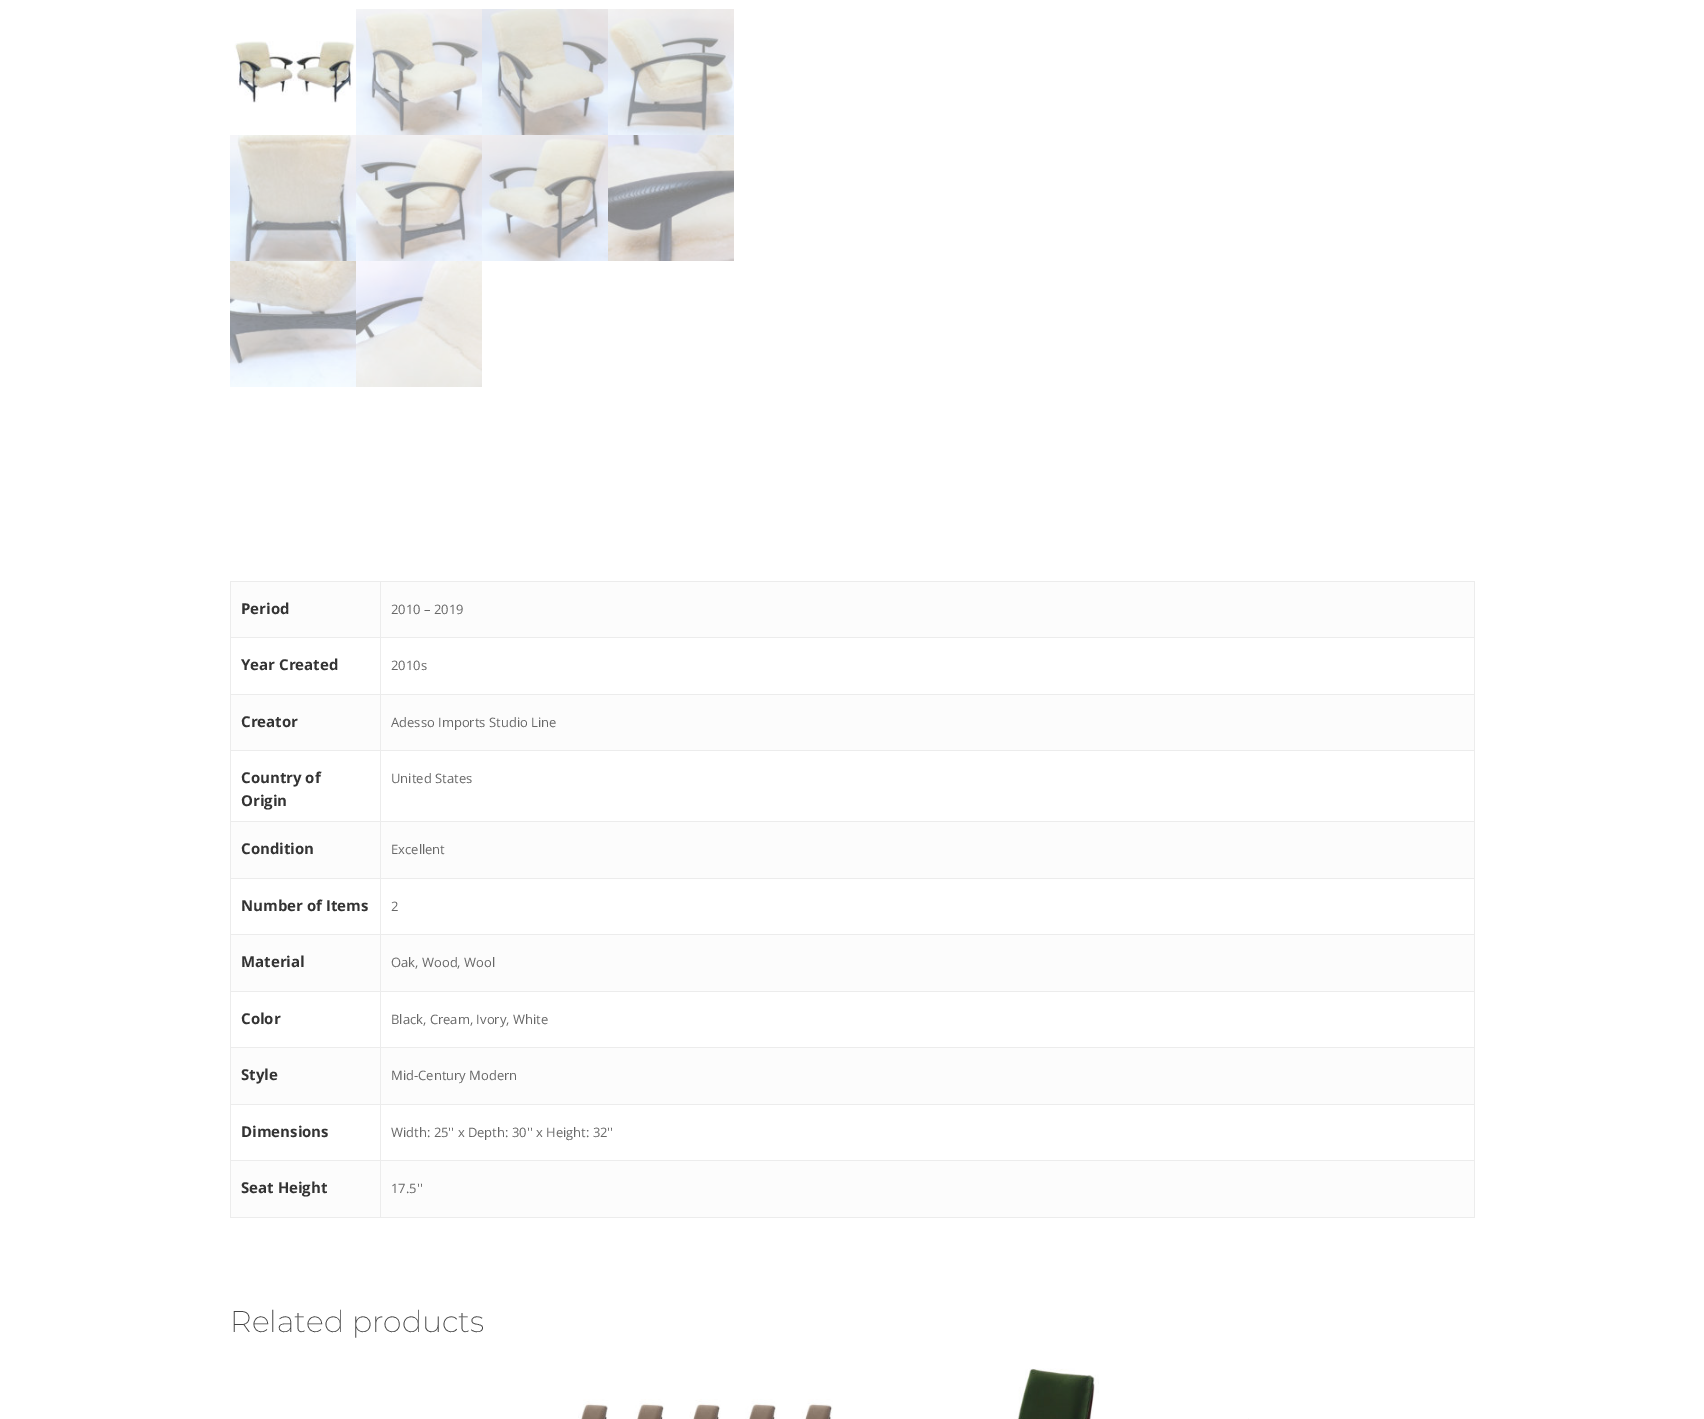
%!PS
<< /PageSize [1704 1419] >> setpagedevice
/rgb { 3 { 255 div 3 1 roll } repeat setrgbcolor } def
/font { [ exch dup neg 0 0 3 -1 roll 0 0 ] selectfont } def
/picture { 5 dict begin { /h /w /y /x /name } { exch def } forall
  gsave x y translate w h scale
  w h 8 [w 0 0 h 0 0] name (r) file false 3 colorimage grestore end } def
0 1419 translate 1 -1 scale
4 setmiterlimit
255 255 255 rgb
0 0 1704 1419 rectfill
(img/1.rgb) 234 41 122 62 picture
(img/2.rgb) 356 9 126 126 picture
(img/3.rgb) 482 9 126 126 picture
(img/4.rgb) 608 9 126 126 picture
(img/5.rgb) 230 135 126 126 picture
(img/6.rgb) 356 135 126 126 picture
(img/7.rgb) 482 135 126 126 picture
(img/8.rgb) 608 135 126 126 picture
(img/9.rgb) 230 261 126 126 picture
(img/10.rgb) 356 261 126 126 picture
[
  [230 581 1245 1 236 236 236]
  [231 582 1243 55 252 252 252]
  [231 695 1243 55 252 252 252]
  [231 822 1243 56 252 252 252]
  [231 935 1243 56 252 252 252]
  [231 1048 1243 56 252 252 252]
  [231 1161 1243 56 252 252 252]
  [1474 581 1 637 236 236 236]
  [380 1217 1095 1 236 236 236]
  [380 1160 1 58 236 236 236]
  [380 1160 1095 1 236 236 236]
  [380 1104 1 57 236 236 236]
  [380 1104 1095 1 236 236 236]
  [380 1047 1 58 236 236 236]
  [380 1047 1095 1 236 236 236]
  [380 991 1 57 236 236 236]
  [380 991 1095 1 236 236 236]
  [380 934 1 58 236 236 236]
  [380 934 1095 1 236 236 236]
  [380 878 1 57 236 236 236]
  [380 878 1095 1 236 236 236]
  [380 821 1 58 236 236 236]
  [380 821 1095 1 236 236 236]
  [380 750 1 72 236 236 236]
  [380 750 1095 1 236 236 236]
  [380 694 1 57 236 236 236]
  [380 694 1095 1 236 236 236]
  [380 637 1 58 236 236 236]
  [380 637 1095 1 236 236 236]
  [380 581 1 57 236 236 236]
  [230 1217 151 1 236 236 236]
  [230 1160 1 58 236 236 236]
  [230 1160 151 1 236 236 236]
  [230 1104 1 57 236 236 236]
  [230 1104 151 1 236 236 236]
  [230 1047 1 58 236 236 236]
  [230 1047 151 1 236 236 236]
  [230 991 1 57 236 236 236]
  [230 991 151 1 236 236 236]
  [230 934 1 58 236 236 236]
  [230 934 151 1 236 236 236]
  [230 878 1 57 236 236 236]
  [230 878 151 1 236 236 236]
  [230 821 1 58 236 236 236]
  [230 821 151 1 236 236 236]
  [230 750 1 72 236 236 236]
  [230 750 151 1 236 236 236]
  [230 694 1 57 236 236 236]
  [230 694 151 1 236 236 236]
  [230 637 1 58 236 236 236]
  [230 637 151 1 236 236 236]
  [230 581 1 57 236 236 236]
] { aload pop rgb rectfill } forall
(img/11.rgb) 578 1399 255 20 picture
(img/12.rgb) 1014 1368 85 51 picture
249 254 251 rgb
1248 1418 1 1 rectfill
/OpenSans-Bold 15 font
51 51 51 rgb
241 614 moveto (Period) show
/OpenSans-Regular 13 font
103 103 103 rgb
391 614 moveto (2010 – 2019) show
/OpenSans-Bold 15 font
51 51 51 rgb
241 670 moveto (Year Created) show
/OpenSans-Regular 13 font
103 103 103 rgb
391 670 moveto (2010s) show
/OpenSans-Bold 15 font
51 51 51 rgb
241 727 moveto (Creator) show
/OpenSans-Regular 13 font
103 103 103 rgb
391 727 moveto (Adesso Imports Studio Line) show
/OpenSans-Bold 15 font
51 51 51 rgb
241 783 moveto (Country of) show
241 806 moveto (Origin) show
/OpenSans-Regular 13 font
103 103 103 rgb
391 783 moveto (United States) show
/OpenSans-Bold 15 font
51 51 51 rgb
241 854 moveto (Condition) show
/OpenSans-Regular 13 font
103 103 103 rgb
391 854 moveto (Excellent) show
/OpenSans-Bold 15 font
51 51 51 rgb
241 911 moveto (Number of Items) show
/OpenSans-Regular 13 font
103 103 103 rgb
391 911 moveto (2) show
/OpenSans-Bold 15 font
51 51 51 rgb
241 967 moveto (Material) show
/OpenSans-Regular 13 font
103 103 103 rgb
391 967 moveto (Oak, Wood, Wool) show
/OpenSans-Bold 15 font
51 51 51 rgb
241 1024 moveto (Color) show
/OpenSans-Regular 13 font
103 103 103 rgb
391 1024 moveto (Black, Cream, Ivory, White) show
/OpenSans-Bold 15 font
51 51 51 rgb
241 1080 moveto (Style) show
/OpenSans-Regular 13 font
103 103 103 rgb
391 1080 moveto (Mid-Century Modern) show
/OpenSans-Bold 15 font
51 51 51 rgb
241 1137 moveto (Dimensions) show
/OpenSans-Regular 13 font
103 103 103 rgb
391 1137 moveto (Width: 25'' x Depth: 30'' x Height: 32'') show
/OpenSans-Bold 15 font
51 51 51 rgb
241 1193 moveto (Seat Height) show
/OpenSans-Regular 13 font
103 103 103 rgb
391 1193 moveto (17.5'') show
/Montserrat-ExtraLight 30 font
68 68 68 rgb
230 1332 moveto (Related products) show
showpage
